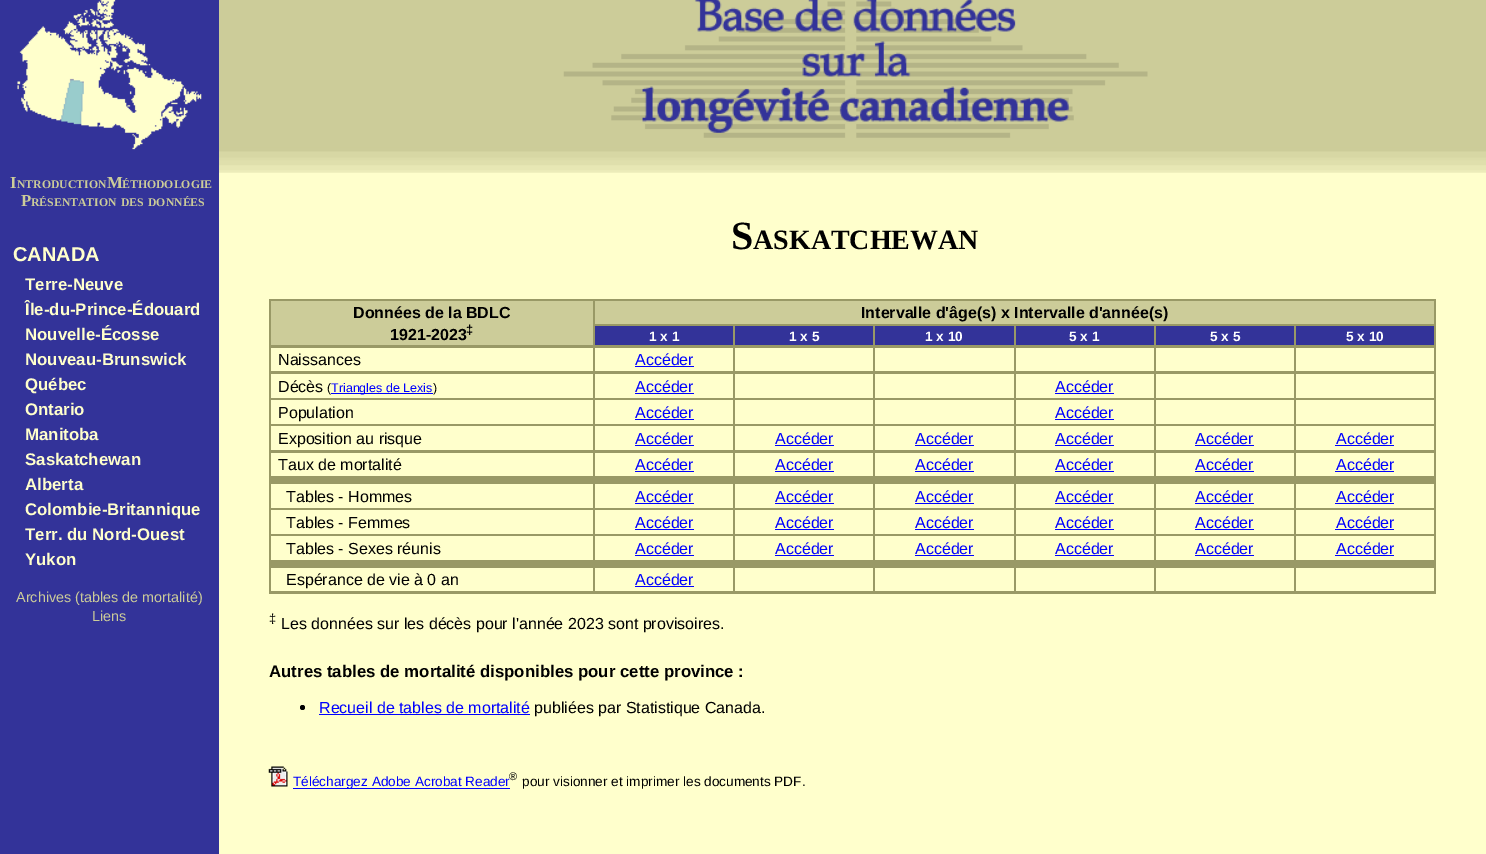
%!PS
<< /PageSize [1486 854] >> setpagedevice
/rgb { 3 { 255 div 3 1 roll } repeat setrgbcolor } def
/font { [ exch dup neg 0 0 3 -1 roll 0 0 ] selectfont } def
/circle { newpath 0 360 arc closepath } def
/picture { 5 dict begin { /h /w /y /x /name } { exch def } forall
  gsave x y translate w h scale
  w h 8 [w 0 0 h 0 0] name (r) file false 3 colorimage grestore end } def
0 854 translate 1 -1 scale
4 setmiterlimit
255 255 204 rgb
0 0 1486 854 rectfill
51 51 153 rgb
0 0 219 854 rectfill
(img/1.rgb) 17 0 185 150 picture
204 204 153 rgb
219 0 1267 148 rectfill
(img/2.rgb) 563 0 585 138 picture
(img/3.rgb) 219 147 1267 26 picture
[
  [269 299 1167 295 153 153 102]
  [271 301 322 44 204 204 153]
  [595 301 839 23 204 204 153]
  [595 326 138 19 51 51 153]
  [735 326 138 19 51 51 153]
  [875 326 139 19 51 51 153]
  [1016 326 138 19 51 51 153]
  [1156 326 138 19 51 51 153]
  [1296 326 138 19 51 51 153]
  [271 348 322 23 255 255 204]
  [595 348 138 23 255 255 204]
  [635 366 59 1 0 0 255]
  [735 348 138 23 255 255 204]
  [875 348 139 23 255 255 204]
  [1016 348 138 23 255 255 204]
  [1156 348 138 23 255 255 204]
  [1296 348 138 23 255 255 204]
  [271 374 322 24 255 255 204]
  [595 374 138 24 255 255 204]
  [635 393 59 1 0 0 255]
  [735 374 138 24 255 255 204]
  [875 374 139 24 255 255 204]
  [1016 374 138 24 255 255 204]
  [1055 393 59 1 0 0 255]
  [1156 374 138 24 255 255 204]
  [1296 374 138 24 255 255 204]
  [271 400 322 24 255 255 204]
  [595 400 138 24 255 255 204]
  [635 419 59 1 0 0 255]
  [735 400 138 24 255 255 204]
  [875 400 139 24 255 255 204]
  [1016 400 138 24 255 255 204]
  [1055 419 59 1 0 0 255]
  [1156 400 138 24 255 255 204]
  [1296 400 138 24 255 255 204]
  [271 426 322 24 255 255 204]
  [595 426 138 24 255 255 204]
  [635 445 59 1 0 0 255]
  [735 426 138 24 255 255 204]
  [775 445 59 1 0 0 255]
  [875 426 139 24 255 255 204]
  [915 445 59 1 0 0 255]
  [1016 426 138 24 255 255 204]
  [1055 445 59 1 0 0 255]
  [1156 426 138 24 255 255 204]
  [1195 445 59 1 0 0 255]
  [1296 426 138 24 255 255 204]
  [1335 445 59 1 0 0 255]
  [271 453 322 23 255 255 204]
  [595 453 138 23 255 255 204]
  [635 471 59 1 0 0 255]
  [735 453 138 23 255 255 204]
  [775 471 59 1 0 0 255]
  [875 453 139 23 255 255 204]
  [915 471 59 1 0 0 255]
  [1016 453 138 23 255 255 204]
  [1055 471 59 1 0 0 255]
  [1156 453 138 23 255 255 204]
  [1195 471 59 1 0 0 255]
  [1296 453 138 23 255 255 204]
  [1335 471 59 1 0 0 255]
  [271 484 322 24 255 255 204]
  [595 484 138 24 255 255 204]
  [635 503 59 1 0 0 255]
  [735 484 138 24 255 255 204]
  [775 503 59 1 0 0 255]
  [875 484 139 24 255 255 204]
  [915 503 59 1 0 0 255]
  [1016 484 138 24 255 255 204]
  [1055 503 59 1 0 0 255]
  [1156 484 138 24 255 255 204]
  [1195 503 59 1 0 0 255]
  [1296 484 138 24 255 255 204]
  [1335 503 59 1 0 0 255]
  [271 510 322 24 255 255 204]
  [595 510 138 24 255 255 204]
  [635 529 59 1 0 0 255]
  [735 510 138 24 255 255 204]
  [775 529 59 1 0 0 255]
  [875 510 139 24 255 255 204]
  [915 529 59 1 0 0 255]
  [1016 510 138 24 255 255 204]
  [1055 529 59 1 0 0 255]
  [1156 510 138 24 255 255 204]
  [1195 529 59 1 0 0 255]
  [1296 510 138 24 255 255 204]
  [1335 529 59 1 0 0 255]
  [271 536 322 24 255 255 204]
  [595 536 138 24 255 255 204]
  [635 555 59 1 0 0 255]
  [735 536 138 24 255 255 204]
  [775 555 59 1 0 0 255]
  [875 536 139 24 255 255 204]
  [915 555 59 1 0 0 255]
  [1016 536 138 24 255 255 204]
  [1055 555 59 1 0 0 255]
  [1156 536 138 24 255 255 204]
  [1195 555 59 1 0 0 255]
  [1296 536 138 24 255 255 204]
  [1335 555 59 1 0 0 255]
  [271 568 322 23 255 255 204]
  [595 568 138 23 255 255 204]
  [635 586 59 1 0 0 255]
  [735 568 138 23 255 255 204]
  [875 568 139 23 255 255 204]
  [1016 568 138 23 255 255 204]
  [1156 568 138 23 255 255 204]
  [1296 568 138 23 255 255 204]
] { aload pop rgb rectfill } forall
0 0 0 rgb
302.5 707.5 2.5 circle fill
0 0 255 rgb
319 714 211 1 rectfill
(img/4.rgb) 268 766 20 21 picture
293 788 217 1 rectfill
/LiberationSerif-Bold 16.8 font
204 204 153 rgb
10 188 moveto (I) show
/LiberationSerif-Bold 11.75 font
17 188 moveto (NTRODUCTION) show
/LiberationSerif-Bold 16.8 font
107 188 moveto (M) show
/LiberationSerif-Bold 11.75 font
122 188 moveto (ÉTHODOLOGIE) show
/LiberationSerif-Bold 16.8 font
21 206 moveto (P) show
/LiberationSerif-Bold 11.75 font
[
  [(RÉSENTATION) 31 206]
  [(DES) 121 206]
  [(DONNÉES) 148 206]
] { aload pop moveto show } forall
/LiberationSans-Bold 20 font
255 255 204 rgb
13 261 moveto (CANADA) show
/LiberationSans-Bold 16.8 font
[
  [(Terre-Neuve) 25 290]
  [(Île-du-Prince-Édouard) 25 315]
  [(Nouvelle-Écosse) 25 340]
  [(Nouveau-Brunswick) 25 365]
  [(Québec) 25 390]
  [(Ontario) 25 415]
  [(Manitoba) 25 440]
  [(Saskatchewan) 25 465]
  [(Alberta) 25 490]
  [(Colombie-Britannique) 25 515]
  [(Terr. du Nord-Ouest) 25 540]
  [(Yukon) 25 565]
] { aload pop moveto show } forall
/LiberationSans-Regular 14.4 font
204 204 153 rgb
16 602 moveto (Archives \(tables de mortalité\)) show
92 621 moveto (Liens) show
/LiberationSerif-Bold 40 font
0 0 0 rgb
731 249 moveto (S) show
/LiberationSerif-Bold 28 font
753 249 moveto (ASKATCHEWAN) show
/LiberationSans-Bold 16 font
353 318 moveto (Données de la BDLC) show
390 340 moveto (1921-2023) show
/LiberationSans-Bold 13 font
466 334 moveto (‡) show
/LiberationSans-Bold 16 font
861 318 moveto (Intervalle d'âge\(s\) x Intervalle d'année\(s\)) show
/LiberationSans-Bold 13.6 font
255 255 255 rgb
[
  [(1 x 1) 649 341]
  [(1 x 5) 789 341]
  [(1 x 10) 925 341]
  [(5 x 1) 1069 341]
  [(5 x 5) 1210 341]
  [(5 x 10) 1346 341]
] { aload pop moveto show } forall
/LiberationSans-Regular 16 font
0 0 0 rgb
278 365 moveto (Naissances) show
0 0 255 rgb
635 365 moveto (Accéder) show
0 0 0 rgb
278 392 moveto (Décès) show
/LiberationSans-Regular 12.5 font
327 392 moveto (\() show
0 0 255 rgb
331 393 102 1 rectfill
331 392 moveto (Triangles de Lexis) show
0 0 0 rgb
433 392 moveto (\)) show
/LiberationSans-Regular 16 font
0 0 255 rgb
635 392 moveto (Accéder) show
1055 392 moveto (Accéder) show
0 0 0 rgb
278 418 moveto (Population) show
0 0 255 rgb
635 418 moveto (Accéder) show
1055 418 moveto (Accéder) show
0 0 0 rgb
278 444 moveto (Exposition au risque) show
0 0 255 rgb
[
  [(Accéder) 635 444]
  [(Accéder) 775 444]
  [(Accéder) 915 444]
  [(Accéder) 1055 444]
  [(Accéder) 1195 444]
  [(Accéder) 1336 444]
] { aload pop moveto show } forall
0 0 0 rgb
278 470 moveto (Taux de mortalité) show
0 0 255 rgb
[
  [(Accéder) 635 470]
  [(Accéder) 775 470]
  [(Accéder) 915 470]
  [(Accéder) 1055 470]
  [(Accéder) 1195 470]
  [(Accéder) 1336 470]
] { aload pop moveto show } forall
0 0 0 rgb
286 502 moveto (Tables - Hommes) show
0 0 255 rgb
[
  [(Accéder) 635 502]
  [(Accéder) 775 502]
  [(Accéder) 915 502]
  [(Accéder) 1055 502]
  [(Accéder) 1195 502]
  [(Accéder) 1336 502]
] { aload pop moveto show } forall
0 0 0 rgb
286 528 moveto (Tables - Femmes) show
0 0 255 rgb
[
  [(Accéder) 635 528]
  [(Accéder) 775 528]
  [(Accéder) 915 528]
  [(Accéder) 1055 528]
  [(Accéder) 1195 528]
  [(Accéder) 1336 528]
] { aload pop moveto show } forall
0 0 0 rgb
286 554 moveto (Tables - Sexes réunis) show
0 0 255 rgb
[
  [(Accéder) 635 554]
  [(Accéder) 775 554]
  [(Accéder) 915 554]
  [(Accéder) 1055 554]
  [(Accéder) 1195 554]
  [(Accéder) 1336 554]
] { aload pop moveto show } forall
0 0 0 rgb
286 585 moveto (Espérance de vie à 0 an) show
0 0 255 rgb
635 585 moveto (Accéder) show
/LiberationSans-Regular 13 font
0 0 0 rgb
269 623 moveto (‡) show
/LiberationSans-Regular 16 font
281 629 moveto (Les données sur les décès pour l'année 2023 sont provisoires.) show
/LiberationSans-Bold 16.8 font
269 677 moveto (Autres tables de mortalité disponibles pour cette province :) show
/LiberationSans-Regular 16 font
0 0 255 rgb
319 713 moveto (Recueil de tables de mortalité) show
0 0 0 rgb
534 713 moveto (publiées par Statistique Canada.) show
/LiberationSans-Regular 13.6 font
0 0 255 rgb
293 786 moveto (Téléchargez Adobe Acrobat Reader) show
/LiberationSans-Regular 11 font
0 0 0 rgb
509 780 moveto (®) show
/LiberationSans-Regular 13.6 font
522 786 moveto (pour visionner et imprimer les documents PDF.) show
showpage
